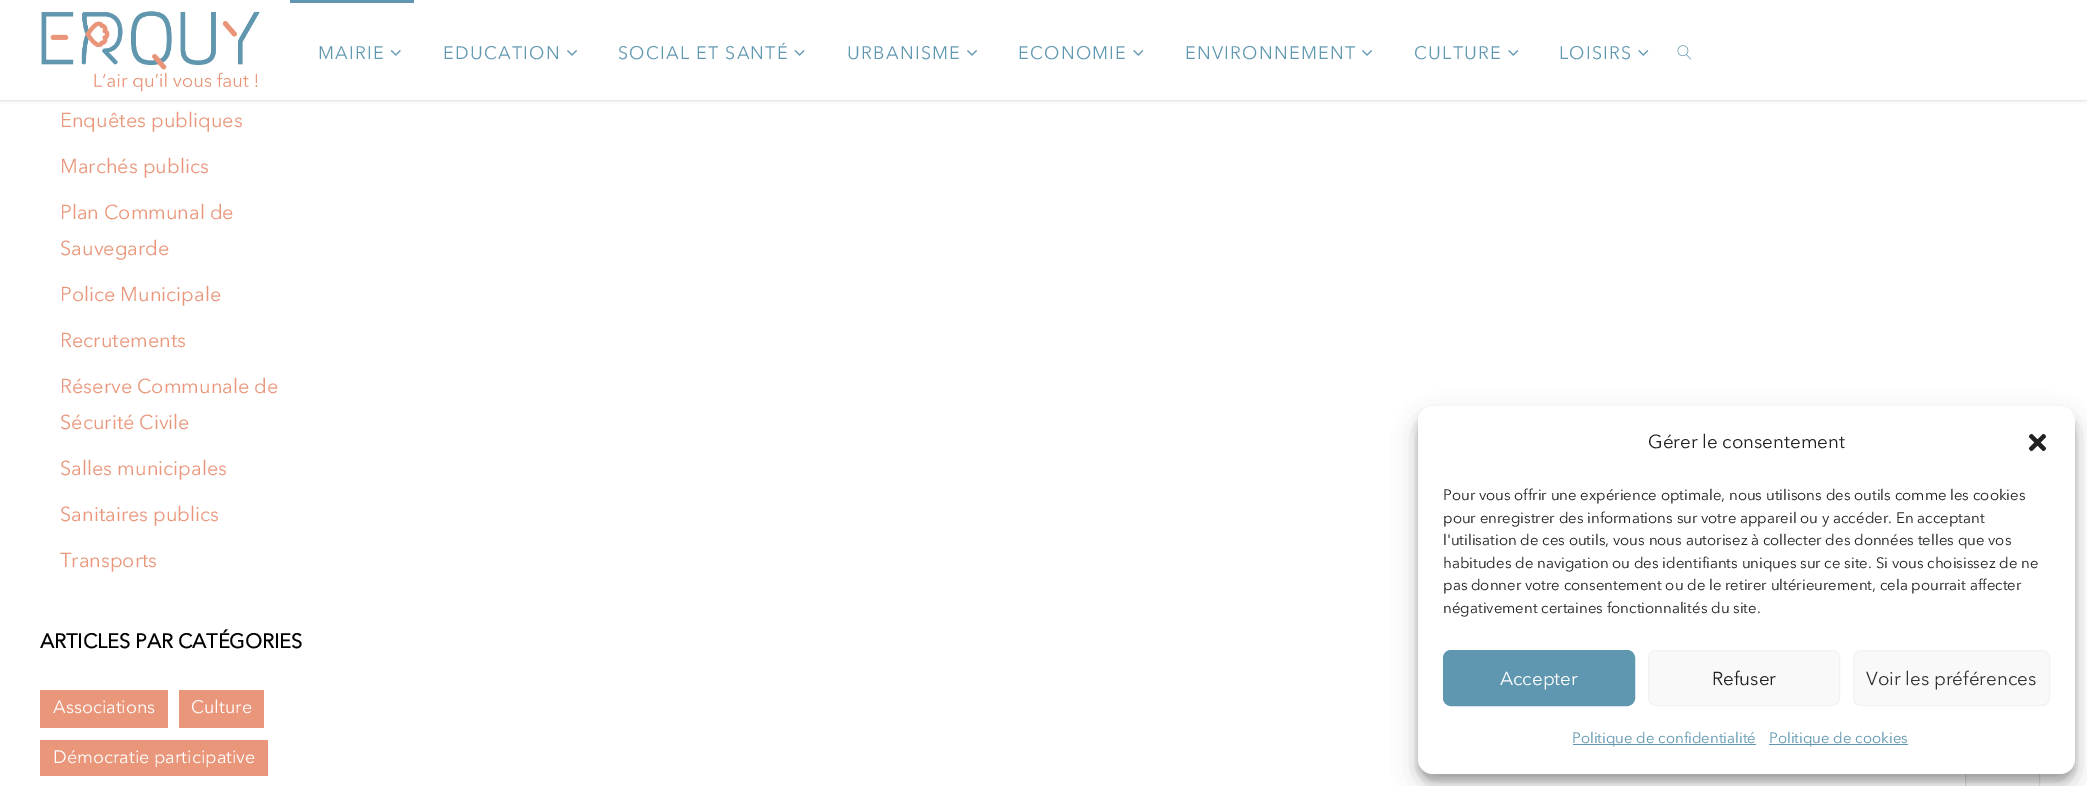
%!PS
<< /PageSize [2087 786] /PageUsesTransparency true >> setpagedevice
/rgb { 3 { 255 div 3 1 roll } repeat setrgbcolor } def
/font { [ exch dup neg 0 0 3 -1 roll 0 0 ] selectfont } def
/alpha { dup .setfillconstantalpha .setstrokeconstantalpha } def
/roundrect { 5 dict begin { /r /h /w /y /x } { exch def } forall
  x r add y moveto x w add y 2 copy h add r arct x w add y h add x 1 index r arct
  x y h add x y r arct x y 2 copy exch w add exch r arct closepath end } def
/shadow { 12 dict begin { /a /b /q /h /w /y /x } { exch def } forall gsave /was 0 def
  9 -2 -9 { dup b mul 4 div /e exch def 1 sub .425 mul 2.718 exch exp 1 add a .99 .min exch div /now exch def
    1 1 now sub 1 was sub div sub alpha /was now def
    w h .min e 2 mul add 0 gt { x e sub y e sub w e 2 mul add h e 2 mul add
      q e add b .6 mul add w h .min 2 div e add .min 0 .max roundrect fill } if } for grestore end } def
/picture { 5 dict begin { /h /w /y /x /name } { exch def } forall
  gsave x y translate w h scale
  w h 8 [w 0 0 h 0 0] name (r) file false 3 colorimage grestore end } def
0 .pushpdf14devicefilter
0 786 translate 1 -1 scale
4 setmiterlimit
255 255 255 rgb
0 0 2087 786 rectfill
0 0 0 rgb
0 0 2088 100 0 2 0.2 shadow
255 255 255 rgb
0 0 2087 100 rectfill
(img/1.rgb) 41 11 219 81 picture
96 151 176 rgb
290 0 124 3 rectfill
(img/2.rgb) 390 50 11 6 picture
(img/3.rgb) 567 50 10 6 picture
(img/4.rgb) 794 50 11 6 picture
(img/3.rgb) 967 50 10 6 picture
(img/5.rgb) 1133 50 11 6 picture
(img/3.rgb) 1362 50 10 6 picture
(img/5.rgb) 1508 50 11 6 picture
(img/5.rgb) 1638 50 11 6 picture
(img/6.rgb) 1677 45 15 15 picture
[
  [40 690 128 38 233 150 122]
  [179 690 85 38 233 150 122]
  [40 740 228 36 233 150 122]
  [1966 774 73 12 251 251 251]
] { aload pop rgb rectfill } forall
226 226 226 rgb
1965.5 739.5 74 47 rectstroke
0 0 0 rgb
1418 414 657 367 15 4 0.23 shadow
1418 419 657 367 15 12.5 0.19 shadow
255 255 255 rgb
1418 406 657 368 15 roundrect fill
(img/7.rgb) 2028 433 19 19 picture
96 151 176 rgb
1443.5 650.5 191 55 7.5 roundrect gsave fill grestore
stroke
249 249 249 rgb
1648.5 650.5 191 55 7.5 roundrect gsave fill grestore
242 242 242 rgb
stroke
249 249 249 rgb
1853.5 650.5 196 55 7.5 roundrect gsave fill grestore
242 242 242 rgb
stroke
96 151 176 rgb
1573 744 183 1 rectfill
1769 744 139 1 rectfill
/AvenirNext-Regular 18 font
318 59 moveto 1.25 0 (MAIRIE) ashow
443 59 moveto 1.25 0 (EDUCATION) ashow
618 59 moveto 1.25 0 (SOCIAL ET SANTÉ) ashow
847 59 moveto 1.25 0 (URBANISME) ashow
1018 59 moveto 1.25 0 (ECONOMIE) ashow
1185 59 moveto 1.25 0 (ENVIRONNEMENT) ashow
1414 59 moveto 1.25 0 (CULTURE) ashow
1559 59 moveto 1.25 0 (LOISIRS) ashow
/AvenirNext-Regular 20 font
233 150 122 rgb
[
  [(Enquêtes publiques) 60 127]
  [(Marchés publics) 60 173]
  [(Plan Communal de) 60 219]
  [(Sauvegarde) 60 255]
  [(Police Municipale) 60 301]
  [(Recrutements) 60 347]
  [(Réserve Communale de) 60 393]
  [(Sécurité Civile) 60 429]
  [(Salles municipales) 60 475]
  [(Sanitaires publics) 60 521]
  [(Transports) 60 567]
] { aload pop moveto show } forall
/AvenirNext-Bold 20 font
0 0 0 rgb
40 648 moveto (ARTICLES PAR CATÉGORIES) show
/AvenirNext-Regular 18 font
255 255 255 rgb
[
  [(Associations) 53 713]
  [(Culture) 191 713]
  [(Démocratie participative) 53 763]
] { aload pop moveto show } forall
/AvenirNext-Regular 18.75 font
34 34 34 rgb
1648 448 moveto (Gérer le consentement) show
/AvenirNext-Regular 15 font
[
  [(Pour vous offrir une expérience optimale, nous utilisons des outils comme les cookies) 1443 500]
  [(pour enregistrer des informations sur votre appareil ou y accéder. En acceptant) 1443 523]
  [(l'utilisation de ces outils, vous nous autorisez à collecter des données telles que vos) 1443 545]
  [(habitudes de navigation ou des identifiants uniques sur ce site. Si vous choisissez de ne) 1443 568]
  [(pas donner votre consentement ou de le retirer ultérieurement, cela pourrait affecter) 1443 590]
  [(négativement certaines fonctionnalités du site.) 1443 613]
] { aload pop moveto show } forall
/AvenirNext-Regular 18.75 font
255 255 255 rgb
1500 685 moveto (Accepter) show
34 34 34 rgb
1712 685 moveto (Refuser) show
51 51 51 rgb
1866 685 moveto (Voir les préférences) show
/AvenirNext-Regular 15 font
96 151 176 rgb
1572 743 moveto (Politique de confidentialité) show
1769 743 moveto (Politique de cookies) show
.poppdf14devicefilter showpage
